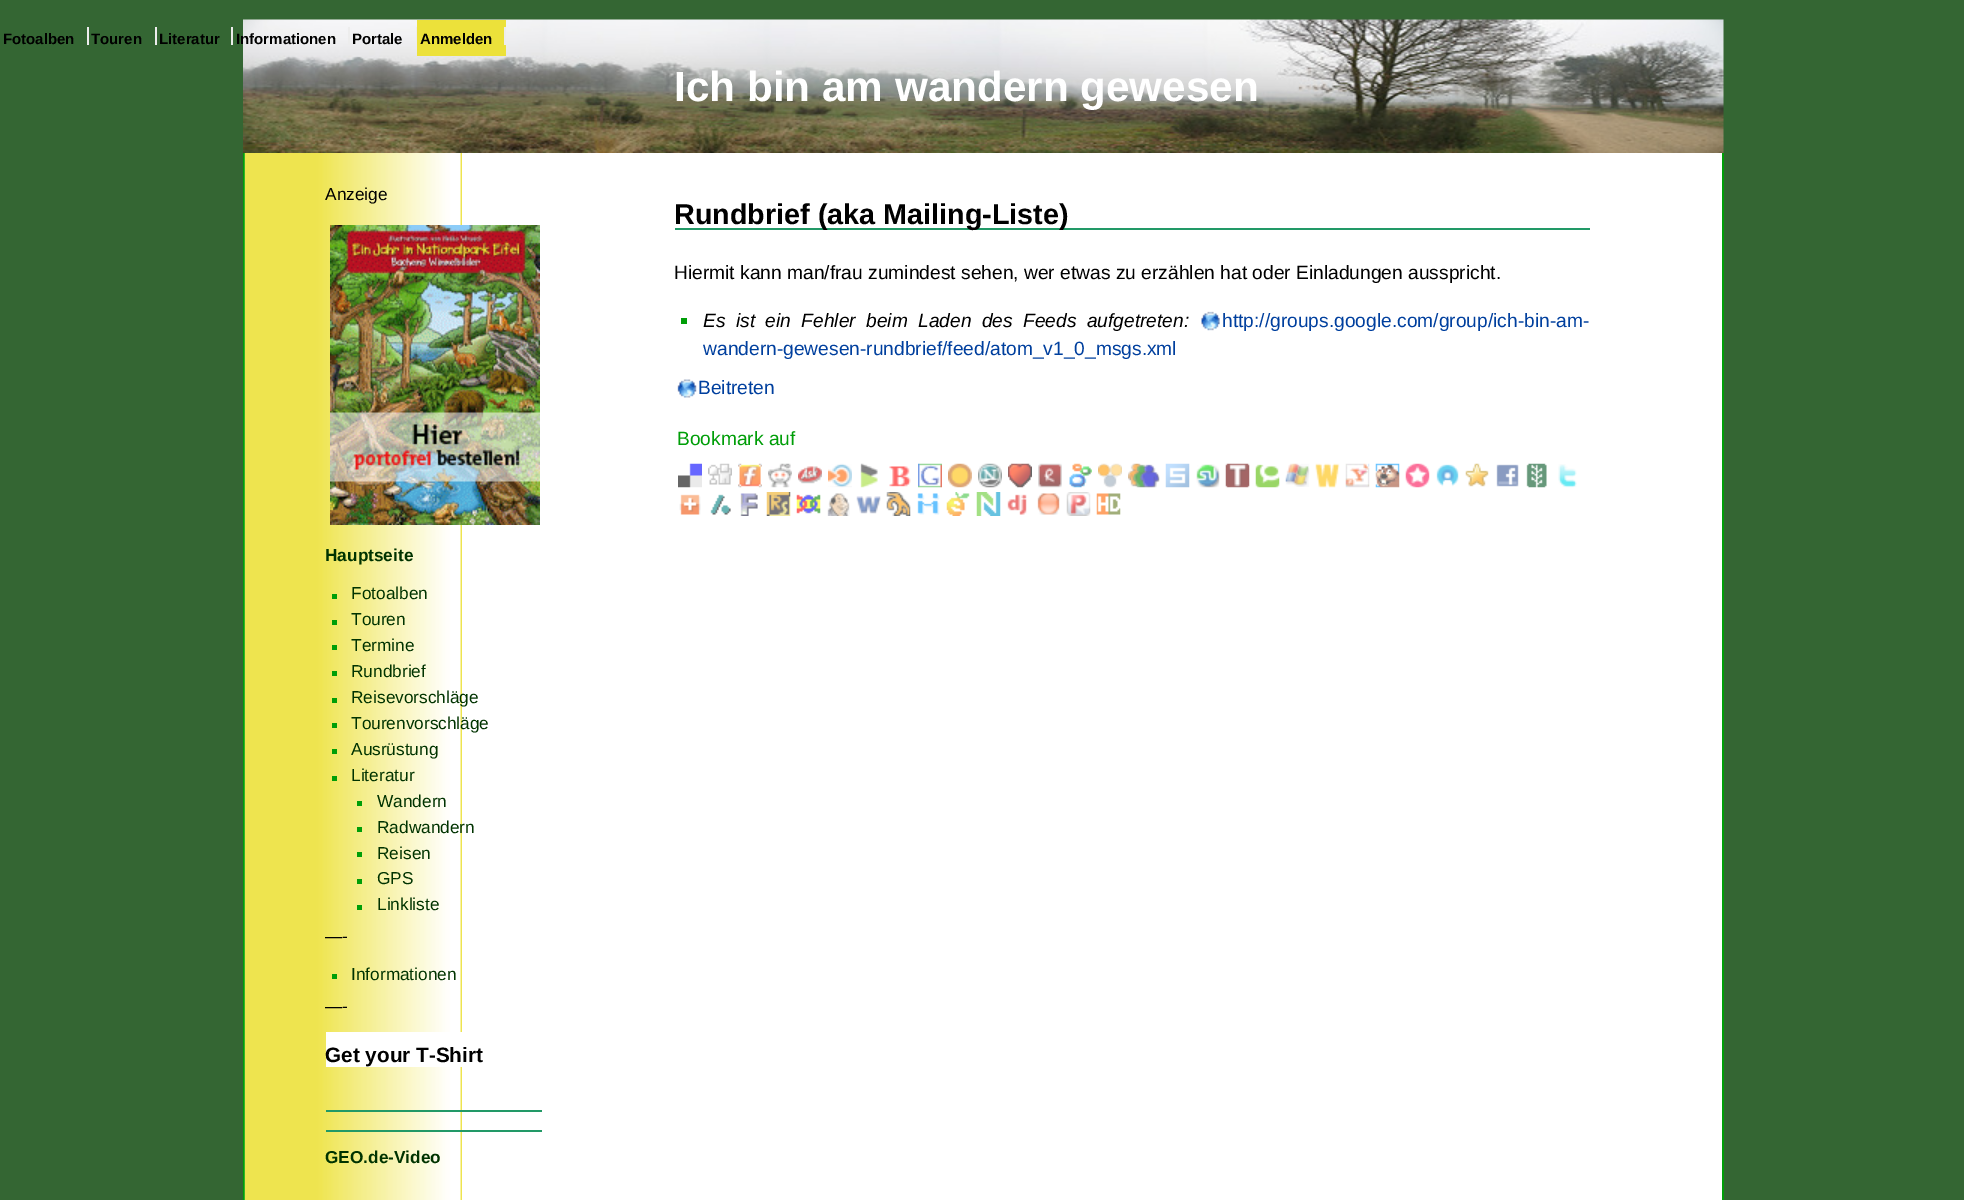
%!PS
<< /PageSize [1964 1200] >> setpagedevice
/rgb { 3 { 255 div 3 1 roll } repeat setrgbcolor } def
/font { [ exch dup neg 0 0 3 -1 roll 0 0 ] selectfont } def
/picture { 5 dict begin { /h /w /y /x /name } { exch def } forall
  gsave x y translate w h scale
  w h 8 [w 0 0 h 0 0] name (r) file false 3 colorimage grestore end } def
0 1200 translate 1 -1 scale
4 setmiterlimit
52 102 51 rgb
0 0 1964 1200 rectfill
[
  [87 27 2 18 237 237 237]
  [155 27 2 18 237 237 237]
  [231 27 2 18 237 237 237]
] { aload pop rgb rectfill } forall
(img/1.rgb) 243 19 1481 134 picture
[
  [348 27 2 18 237 237 237]
  [416 27 1 18 237 237 237]
  [417 20 89 36 236 225 58]
  [504 27 2 18 237 237 237]
  [245 153 1477 1047 255 255 255]
  [1722 153 2 1047 0 158 8]
  [243 153 2 1047 0 158 8]
] { aload pop rgb rectfill } forall
(img/2.rgb) 244 153 218 1047 picture
(img/3.rgb) 330 225 210 300 picture
[
  [332 594 5 5 0 158 8]
  [332 620 5 5 0 158 8]
  [332 645 5 5 0 158 8]
  [332 671 5 5 0 158 8]
  [332 698 5 5 0 158 8]
  [332 723 5 5 0 158 8]
  [332 749 5 5 0 158 8]
  [332 776 5 5 0 158 8]
  [357 801 5 5 0 158 8]
  [357 827 5 5 0 158 8]
  [357 852 5 5 0 158 8]
  [357 879 5 5 0 158 8]
  [357 905 5 5 0 158 8]
  [332 974 5 5 0 158 8]
  [326 1032 136 35 255 255 255]
  [326 1110 216 2 34 153 103]
  [326 1130 216 2 34 153 103]
  [675 228 915 2 34 153 103]
  [681 318 6 6 0 158 8]
] { aload pop rgb rectfill } forall
(img/4.rgb) 1201 311 19 20 picture
(img/5.rgb) 677 379 20 19 picture
(img/6.rgb) 678 463 24 25 picture
(img/7.rgb) 708 463 24 22 picture
(img/8.rgb) 738 463 24 25 picture
(img/9.rgb) 768 463 24 25 picture
(img/10.rgb) 798 466 24 18 picture
(img/11.rgb) 828 463 24 25 picture
(img/12.rgb) 860 463 18 25 picture
(img/13.rgb) 889 466 22 21 picture
(img/14.rgb) 918 463 24 25 picture
(img/15.rgb) 948 463 24 25 picture
(img/16.rgb) 978 463 24 25 picture
(img/17.rgb) 1008 463 24 25 picture
(img/18.rgb) 1038 463 24 25 picture
(img/19.rgb) 1069 463 23 25 picture
(img/20.rgb) 1098 463 24 25 picture
(img/21.rgb) 1128 463 32 25 picture
(img/22.rgb) 1165 463 25 25 picture
(img/23.rgb) 1196 464 24 24 picture
(img/24.rgb) 1225 463 25 25 picture
(img/25.rgb) 1255 464 25 24 picture
(img/26.rgb) 1285 463 25 24 picture
(img/27.rgb) 1315 463 25 25 picture
(img/28.rgb) 1345 463 25 25 picture
(img/29.rgb) 1375 463 25 25 picture
(img/30.rgb) 1405 463 25 25 picture
(img/31.rgb) 1436 464 23 23 picture
(img/32.rgb) 1465 463 24 24 picture
(img/33.rgb) 1496 464 23 23 picture
(img/34.rgb) 1526 463 21 25 picture
(img/35.rgb) 1558 464 19 24 picture
(img/36.rgb) 679 494 22 21 picture
(img/37.rgb) 710 494 21 21 picture
(img/38.rgb) 740 493 18 23 picture
(img/39.rgb) 766 492 25 24 picture
(img/40.rgb) 796 494 25 20 picture
(img/41.rgb) 827 493 23 23 picture
(img/42.rgb) 856 496 25 18 picture
(img/43.rgb) 886 492 25 24 picture
(img/44.rgb) 917 493 23 22 picture
(img/45.rgb) 946 492 24 24 picture
(img/46.rgb) 976 492 25 24 picture
(img/47.rgb) 1007 494 20 21 picture
(img/48.rgb) 1037 493 23 22 picture
(img/49.rgb) 1066 492 25 24 picture
(img/50.rgb) 1096 493 25 22 picture
/LiberationSans-Bold 15 font
0 0 0 rgb
[
  [(Fotoalben) 3 44]
  [(Touren) 91 44]
  [(Literatur) 159 44]
  [(Informationen) 236 44]
  [(Portale) 352 44]
  [(Anmelden) 420 44]
] { aload pop moveto show } forall
/LiberationSans-Bold 42.25 font
255 255 255 rgb
674 101 moveto (Ich bin am wandern gewesen) show
/LiberationSans-Regular 17.25 font
0 0 0 rgb
325 200 moveto (Anzeige) show
/LiberationSans-Bold 17.25 font
0 51 0 rgb
325 561 moveto (Hauptseite) show
/LiberationSans-Regular 17.25 font
[
  [(Fotoalben) 351 599]
  [(Touren) 351 625]
  [(Termine) 351 651]
  [(Rundbrief) 351 677]
  [(Reisevorschläge) 351 703]
  [(Tourenvorschläge) 351 729]
  [(Ausrüstung) 351 755]
  [(Literatur) 351 781]
  [(Wandern) 377 807]
  [(Radwandern) 377 833]
  [(Reisen) 377 859]
  [(GPS) 377 884]
  [(Linkliste) 377 910]
] { aload pop moveto show } forall
0 0 0 rgb
325 942 moveto (—-) show
0 51 0 rgb
351 980 moveto (Informationen) show
0 0 0 rgb
325 1012 moveto (—-) show
/LiberationSans-Bold 20.75 font
325 1062 moveto (Get your T-Shirt) show
/LiberationSans-Bold 17.25 font
0 51 0 rgb
325 1163 moveto (GEO.de-Video) show
/LiberationSans-Bold 28.75 font
0 0 0 rgb
674 224 moveto (Rundbrief \(aka Mailing-Liste\)) show
/LiberationSans-Regular 19.2 font
674 279 moveto (Hiermit kann man/frau zumindest sehen, wer etwas zu erzählen hat oder Einladungen ausspricht.) show
/LiberationSans-Italic 19.2 font
703 327 moveto 5 0 32 (Es ist ein Fehler beim Laden des Feeds aufgetreten:) widthshow
/LiberationSans-Regular 19.2 font
0 63 158 rgb
[
  [(http://groups.google.com/group/ich-bin-am-) 1222 327]
  [(wandern-gewesen-rundbrief/feed/atom_v1_0_msgs.xml) 703 355]
  [(Beitreten) 698 394]
] { aload pop moveto show } forall
0 158 8 rgb
677 445 moveto (Bookmark auf) show
showpage
